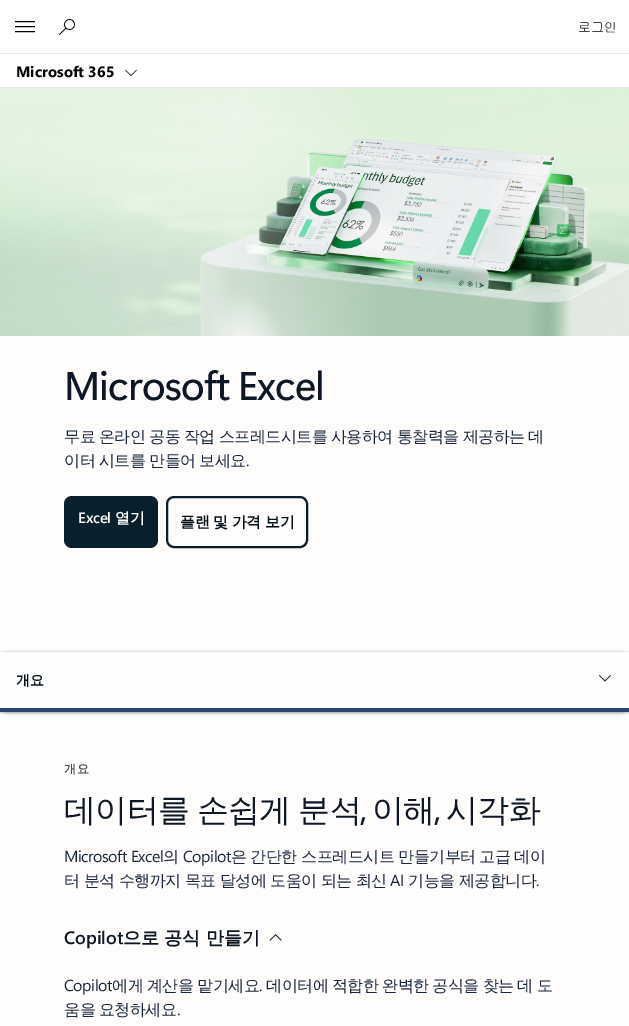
%!PS
<< /PageSize [629 1026] /PageUsesTransparency true >> setpagedevice
/rgb { 3 { 255 div 3 1 roll } repeat setrgbcolor } def
/font { [ exch dup neg 0 0 3 -1 roll 0 0 ] selectfont } def
/alpha { dup .setfillconstantalpha .setstrokeconstantalpha } def
/roundrect { 5 dict begin { /r /h /w /y /x } { exch def } forall
  x r add y moveto x w add y 2 copy h add r arct x w add y h add x 1 index r arct
  x y h add x y r arct x y 2 copy exch w add exch r arct closepath end } def
/shadow { 12 dict begin { /a /b /q /h /w /y /x } { exch def } forall gsave /was 0 def
  9 -2 -9 { dup b mul 4 div /e exch def 1 sub .425 mul 2.718 exch exp 1 add a .99 .min exch div /now exch def
    1 1 now sub 1 was sub div sub alpha /was now def
    w h .min e 2 mul add 0 gt { x e sub y e sub w e 2 mul add h e 2 mul add
      q e add b .6 mul add w h .min 2 div e add .min 0 .max roundrect fill } if } for grestore end } def
/picture { 5 dict begin { /h /w /y /x /name } { exch def } forall
  gsave x y translate w h scale
  w h 8 [w 0 0 h 0 0] name (r) file false 3 colorimage grestore end } def
0 .pushpdf14devicefilter
0 1026 translate 1 -1 scale
4 setmiterlimit
255 253 251 rgb
0 0 629 1026 rectfill
255 255 255 rgb
0 0 629 53 rectfill
230 230 230 rgb
0 53 629 1 rectfill
(img/1.rgb) 15 21 20 12 picture
(img/2.rgb) 59 19 16 16 picture
255 255 255 rgb
0 54 629 33 rectfill
230 230 230 rgb
0 87 629 1 rectfill
(img/3.rgb) 125 69 12 7 picture
(img/4.rgb) 0 88 629 248 picture
9 31 44 rgb
64 496 94 52 8 roundrect fill
2 setlinewidth
167 497 140 50 7 roundrect stroke
0 0 0 rgb
0 654 629 60 8 2 0.14 shadow
0 652 629 60 8 1 0.12 shadow
0 653 629 60 0 1 0.14 shadow
0 652 629 60 0 1 0.12 shadow
254 254 254 rgb
0 652 629 56 rectfill
(img/5.rgb) 599 675 12 7 picture
42 68 111 rgb
0 708 629 4 rectfill
(img/6.rgb) 269 934 13 7 picture
/Gulim-Regular 13 font
0 0 0 rgb
578 32 moveto (로그인) show
/SegoeUI-Bold 15 font
16 77 moveto (Microsoft 365) show
/SegoeUI-Medium 40 font
14 23 38 rgb
64 400 moveto -1 0 (Microsoft Excel) ashow
/WenQuanYiZenHei-Medium 16 font
23 37 61 rgb
64 442 moveto -0.5 0 32 -0.5 0 (무료 온라인 공동 작업 스프레드시트를 사용하여 통찰력을 제공하는 데) awidthshow
64 466 moveto -0.5 0 32 -0.5 0 (이터 시트를 만들어 보세요) awidthshow
/SegoeUI-Regular 16 font
246 466 moveto -0.5 0 (.) ashow
/SegoeUI-SemiBold 15 font
255 255 255 rgb
78 523 moveto -0.25 0 (Excel) ashow
/WenQuanYiZenHei-Bold 15 font
115 523 moveto -0.25 0 (열기) ashow
5 17 24 rgb
180 527 moveto -0.5 0 32 -0.25 0 (플랜 및 가격 보기) awidthshow
/WenQuanYiZenHei-Bold 14 font
16 685 moveto (개요) show
/WenQuanYiZenHei-Bold 12 font
79 78 76 rgb
64 773 moveto 1 0 (개요) ashow
/WenQuanYiZenHei-Medium 32 font
14 23 38 rgb
64 821 moveto -1 0 32 -0.75 0 (데이터를 손쉽게 분석) awidthshow
/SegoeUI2-Medium 32 font
360 821 moveto -0.75 0 (,) ashow
/WenQuanYiZenHei-Medium 32 font
372 821 moveto -0.75 0 (이해) ashow
/SegoeUI2-Medium 32 font
434 821 moveto -0.75 0 (,) ashow
/WenQuanYiZenHei-Medium 32 font
446 821 moveto -0.75 0 (시각화) ashow
/SegoeUI-Regular 16 font
23 37 61 rgb
64 862 moveto -0.5 0 (Microsoft Excel) ashow
/WenQuanYiZenHei-Medium 16 font
163 862 moveto -0.5 0 (의) ashow
/SegoeUI-Regular 16 font
183 862 moveto -0.5 0 (Copilot) ashow
/WenQuanYiZenHei-Medium 16 font
231 862 moveto -0.5 0 (은) ashow
250 862 moveto -0.5 0 (간단한) ashow
301 862 moveto -0.5 0 (스프레드시트) ashow
398 862 moveto -0.5 0 (만들기부터) ashow
479 862 moveto -0.5 0 (고급) ashow
514 862 moveto -0.5 0 (데이) ashow
64 886 moveto -0.25 0 32 -0.5 0 (터 분석 수행까지 목표 달성에 도움이 되는 최신) awidthshow
/SegoeUI-Regular 16 font
390 886 moveto -0.5 0 (AI) ashow
/WenQuanYiZenHei-Medium 16 font
408 886 moveto -0.25 0 32 -0.5 0 (기능을 제공합니다) awidthshow
/SegoeUI-Regular 16 font
536 886 moveto -0.5 0 (.) ashow
/SegoeUI-SemiBold 18 font
14 23 38 rgb
64 944 moveto (Copilot) show
/WenQuanYiZenHei-Bold 18 font
123 944 moveto (으로 공식 만들기) show
/SegoeUI-Regular 16 font
23 37 61 rgb
64 991 moveto -0.5 0 (Copilot) ashow
/WenQuanYiZenHei-Medium 16 font
112 991 moveto -0.5 0 32 -0.5 0 (에게 계산을 맡기세요) awidthshow
/SegoeUI-Regular 16 font
259 991 moveto -0.5 0 (.) ashow
/WenQuanYiZenHei-Medium 16 font
266 991 moveto -0.5 0 32 -0.5 0 (데이터에 적합한 완벽한 공식을 찾는 데 도) awidthshow
64 1015 moveto -0.5 0 32 -0.5 0 (움을 요청하세요) awidthshow
/SegoeUI-Italic 16 font
177 1015 moveto -0.5 0 (.) ashow
.poppdf14devicefilter showpage
